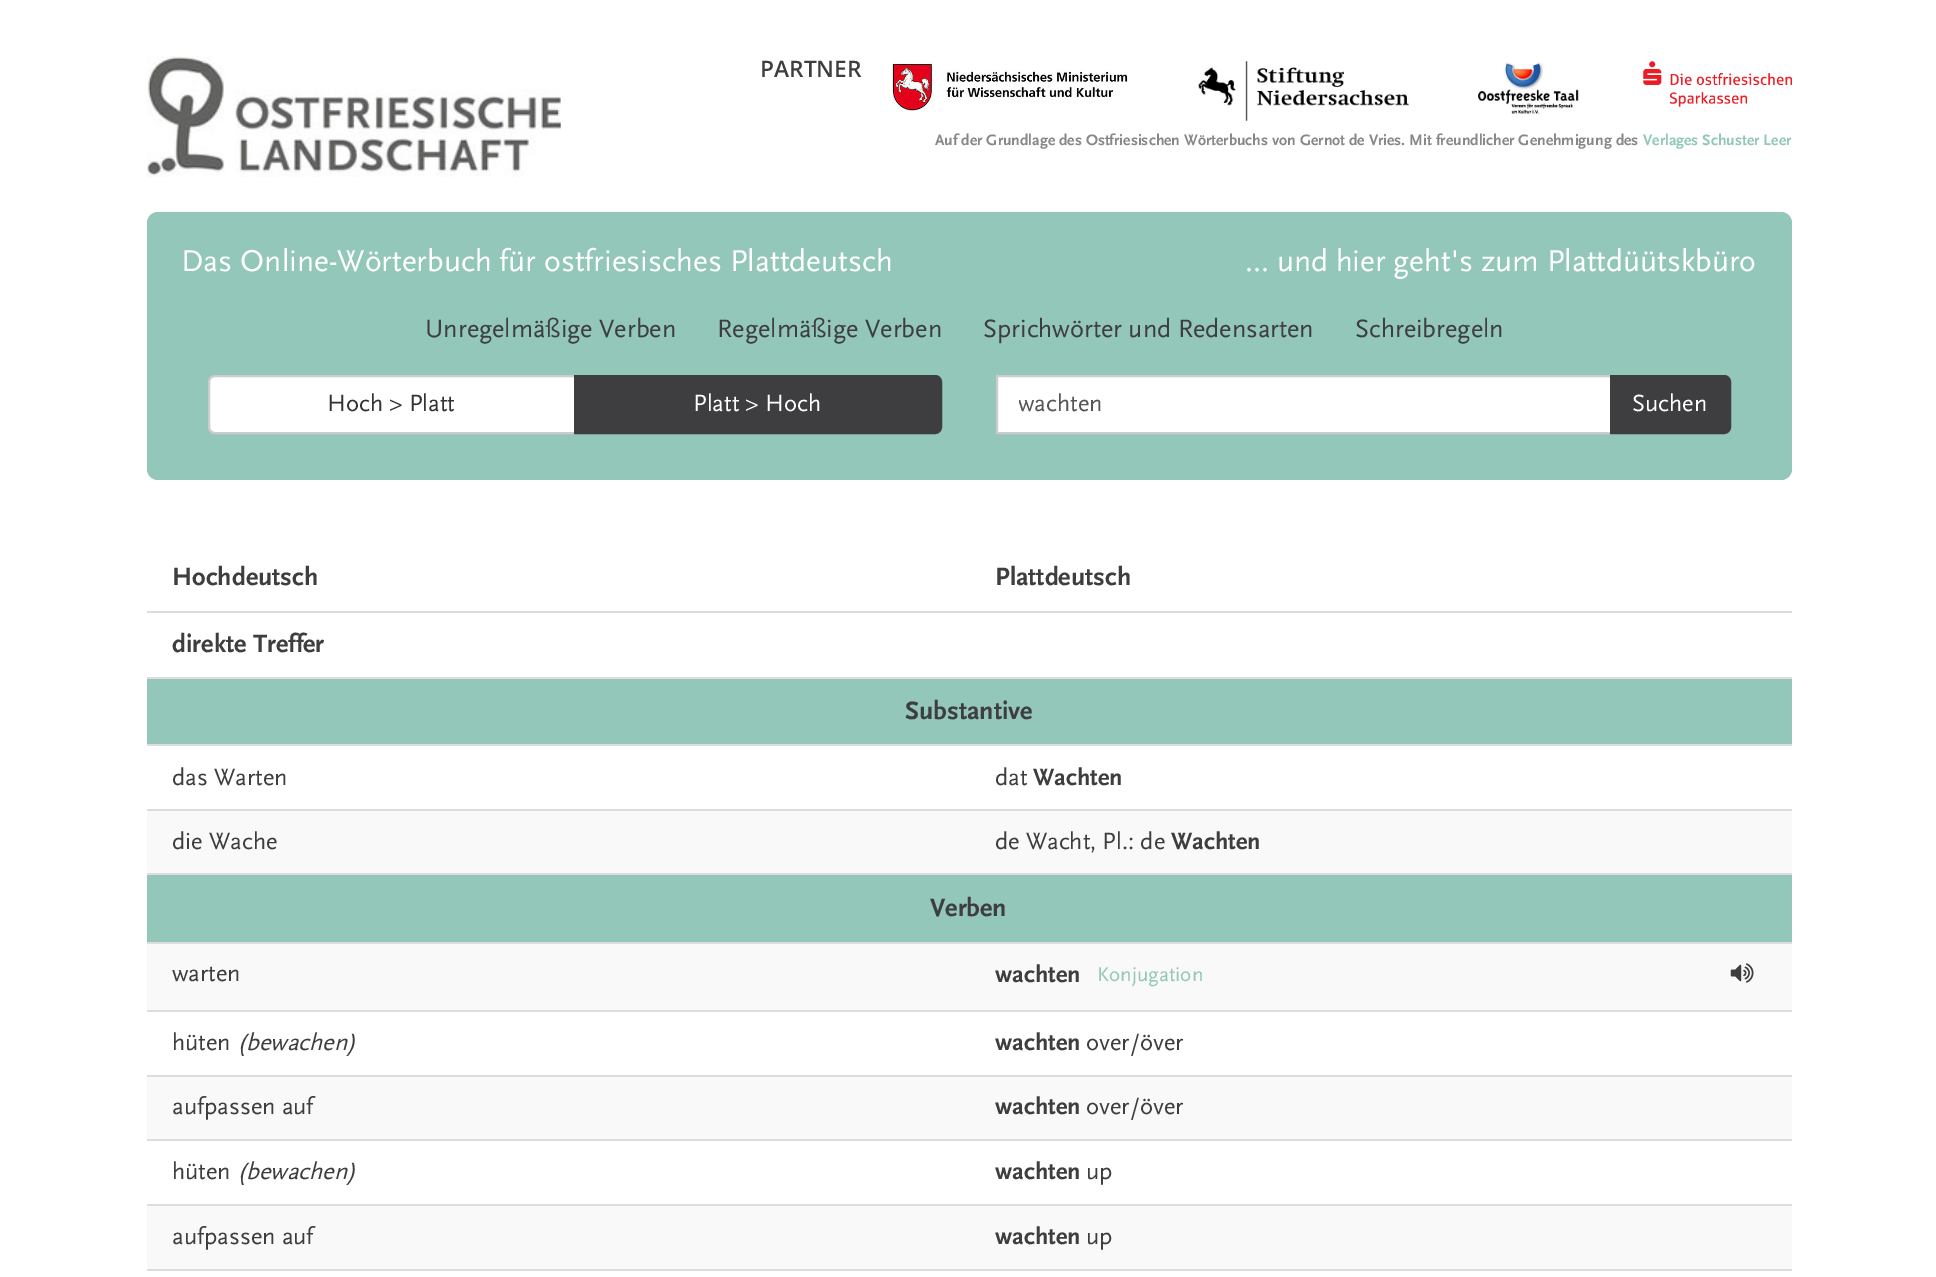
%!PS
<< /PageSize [1936 1277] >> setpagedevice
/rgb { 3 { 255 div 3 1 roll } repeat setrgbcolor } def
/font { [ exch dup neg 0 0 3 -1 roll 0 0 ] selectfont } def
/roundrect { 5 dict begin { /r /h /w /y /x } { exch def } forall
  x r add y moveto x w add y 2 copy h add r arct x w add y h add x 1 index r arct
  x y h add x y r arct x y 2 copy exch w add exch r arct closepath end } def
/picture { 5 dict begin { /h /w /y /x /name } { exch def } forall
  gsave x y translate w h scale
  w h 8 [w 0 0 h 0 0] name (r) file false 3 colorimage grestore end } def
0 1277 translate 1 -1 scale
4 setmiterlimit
255 255 255 rgb
0 0 1936 1277 rectfill
(img/1.rgb) 147 56 414 121 picture
(img/2.rgb) 892 61 236 51 picture
(img/3.rgb) 1198 61 211 60 picture
(img/4.rgb) 1478 61 101 53 picture
(img/5.rgb) 1643 61 149 46 picture
146 199 186 rgb
147 212 1645 268 11 roundrect fill
255 255 255 rgb
215 376 moveto 575 376 lineto 575 433 lineto 215 433 lineto 211.5 433 209 430.5 209 427 curveto 209 382 lineto 209 378.5 211.5 376 215 376 curveto closepath gsave fill grestore
204 204 204 rgb
2 setlinewidth
stroke
62 61 64 rgb
575 376 moveto 935 376 lineto 938.5 376 941 378.5 941 382 curveto 941 427 lineto 941 430.5 938.5 433 935 433 curveto 575 433 lineto closepath gsave fill grestore
stroke
255 255 255 rgb
997 376 moveto 1611 376 lineto 1611 433 lineto 997 433 lineto closepath gsave fill grestore
204 204 204 rgb
stroke
62 61 64 rgb
1611 376 moveto 1724 376 lineto 1727.5 376 1730 378.5 1730 382 curveto 1730 427 lineto 1730 430.5 1727.5 433 1724 433 curveto 1611 433 lineto closepath gsave fill grestore
stroke
[
  [147 611 1645 2 221 221 221]
  [147 679 1645 65 146 199 186]
  [147 677 1645 2 221 221 221]
  [147 744 1645 2 221 221 221]
  [147 811 1645 62 249 249 249]
  [147 809 1645 2 221 221 221]
  [147 875 1645 67 146 199 186]
  [147 873 1645 2 221 221 221]
  [147 944 1645 66 249 249 249]
  [147 942 1645 2 221 221 221]
] { aload pop rgb rectfill } forall
(img/6.rgb) 1730 963 24 20 picture
[
  [147 1010 1645 2 221 221 221]
  [147 1077 1645 62 249 249 249]
  [147 1075 1645 2 221 221 221]
  [147 1139 1645 2 221 221 221]
  [147 1206 1645 63 249 249 249]
  [147 1204 1645 2 221 221 221]
  [147 1269 1645 2 221 221 221]
] { aload pop rgb rectfill } forall
/OpenSans-SemiBold 22.75 font
62 61 64 rgb
760 77 moveto (PARTNER) show
/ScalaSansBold-Bold 15.75 font
136 136 136 rgb
935 145 moveto (Auf der Grundlage des Ostfriesischen Wörterbuchs von Gernot de Vries. Mit freundlicher Genehmigung des) show
146 199 186 rgb
1643 145 moveto (Verlages Schuster Leer) show
/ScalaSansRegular-Regular 31.5 font
255 255 255 rgb
181 271 moveto (Das Online-Wörterbuch für ostfriesisches Plattdeutsch) show
1245 271 moveto (... und hier geht's zum Plattdüütskbüro) show
/ScalaSansRegular-Regular 26.25 font
62 61 64 rgb
[
  [(Unregelmäßige Verben) 425 337]
  [(Regelmäßige Verben) 717 337]
  [(Sprichwörter und Redensarten) 983 337]
  [(Schreibregeln) 1355 337]
] { aload pop moveto show } forall
/ScalaSansRegular-Regular 24.5 font
51 51 51 rgb
327 411 moveto (Hoch > Platt) show
255 255 255 rgb
693 411 moveto (Platt > Hoch) show
gsave
1019 390 570 28 rectclip
85 85 85 rgb
1018 411 moveto (wachten) show
grestore
1632 411 moveto (Suchen) show
/ScalaSansBold-Bold 26.25 font
62 61 64 rgb
[
  [(Hochdeutsch) 172 585]
  [(Plattdeutsch) 995 585]
  [(direkte Treffer) 172 652]
  [(Substantive) 905 719]
] { aload pop moveto show } forall
/ScalaSansRegular-Regular 24.5 font
172 785 moveto (das Warten) show
995 785 moveto (dat) show
/ScalaSansBold-Bold 24.5 font
1033 785 moveto (Wachten) show
/ScalaSansRegular-Regular 24.5 font
172 849 moveto (die Wache) show
995 849 moveto (de Wacht, Pl.: de) show
/ScalaSansBold-Bold 24.5 font
1171 849 moveto (Wachten) show
/ScalaSansBold-Bold 26.25 font
930 916 moveto (Verben) show
/ScalaSansRegular-Regular 24.5 font
172 981 moveto (warten) show
/ScalaSansBold-Bold 24.5 font
995 982 moveto (wachten) show
/ScalaSansRegular-Regular 21 font
146 199 186 rgb
1097 981 moveto (Konjugation) show
/ScalaSansRegular-Regular 24.5 font
62 61 64 rgb
172 1050 moveto (hüten) show
/ScalaSansRegular-Italic 24.5 font
237 1050 moveto (\(bewachen\)) show
/ScalaSansBold-Bold 24.5 font
995 1050 moveto (wachten) show
/ScalaSansRegular-Regular 24.5 font
1086 1050 moveto (over/över) show
172 1114 moveto (aufpassen auf) show
/ScalaSansBold-Bold 24.5 font
995 1114 moveto (wachten) show
/ScalaSansRegular-Regular 24.5 font
1086 1114 moveto (over/över) show
172 1179 moveto (hüten) show
/ScalaSansRegular-Italic 24.5 font
237 1179 moveto (\(bewachen\)) show
/ScalaSansBold-Bold 24.5 font
995 1179 moveto (wachten) show
/ScalaSansRegular-Regular 24.5 font
1086 1179 moveto (up) show
172 1244 moveto (aufpassen auf) show
/ScalaSansBold-Bold 24.5 font
995 1244 moveto (wachten) show
/ScalaSansRegular-Regular 24.5 font
1086 1244 moveto (up) show
showpage
